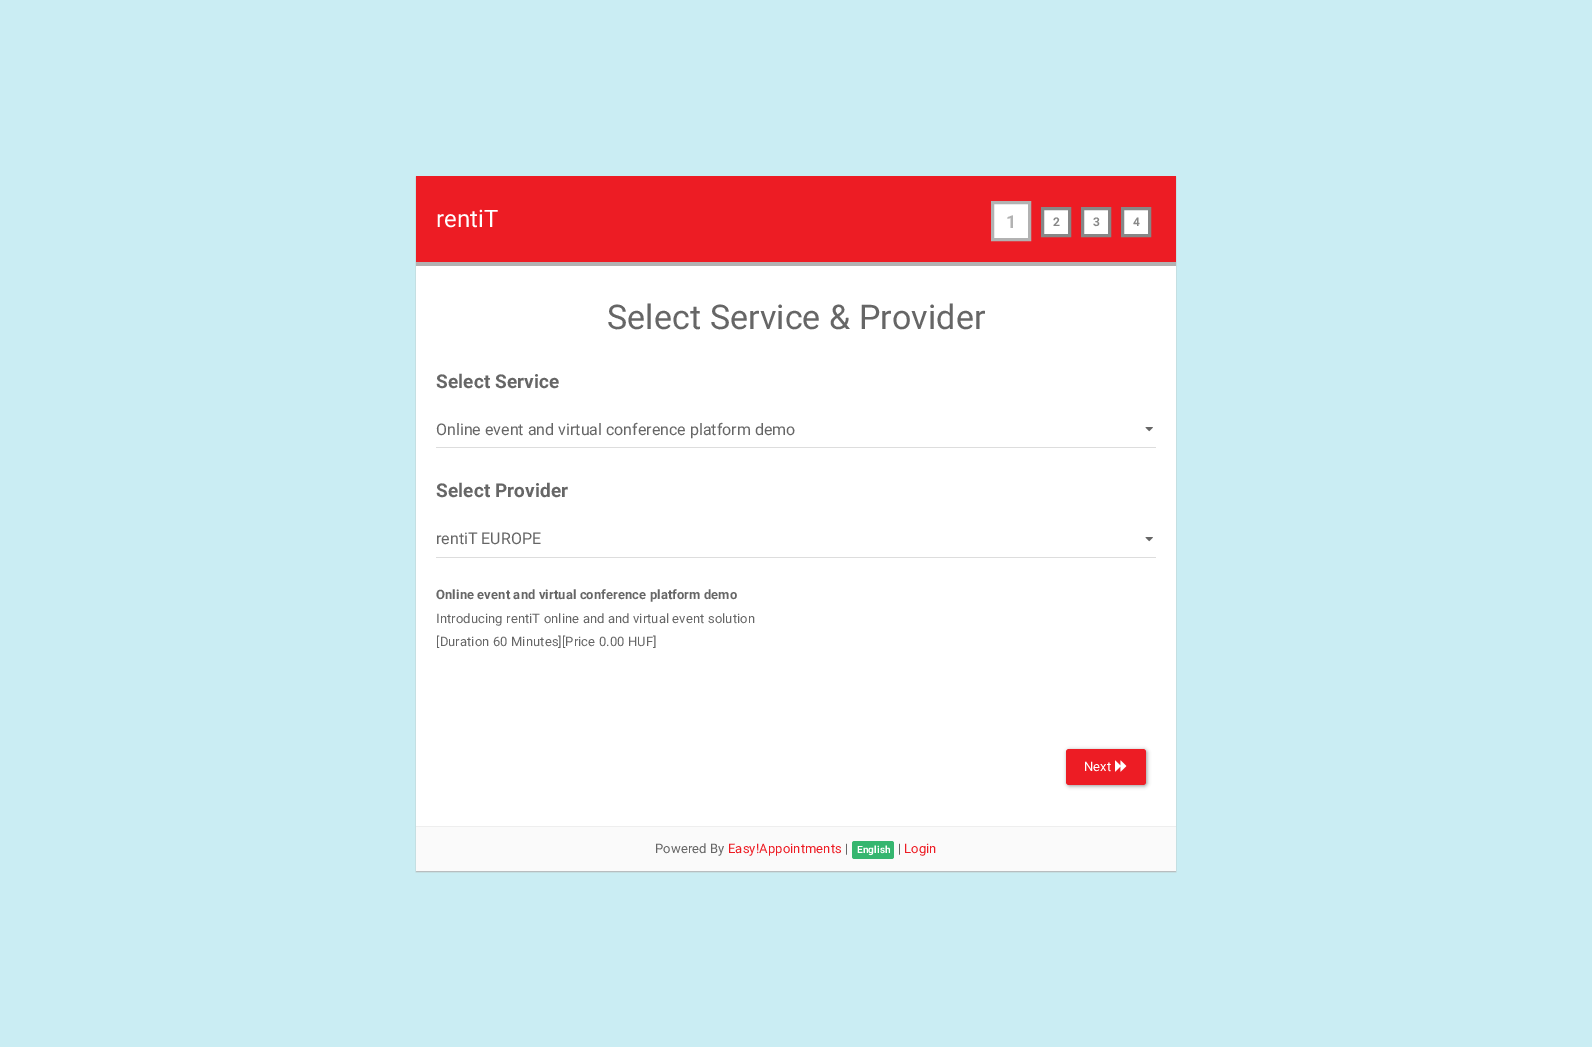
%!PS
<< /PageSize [1592 1047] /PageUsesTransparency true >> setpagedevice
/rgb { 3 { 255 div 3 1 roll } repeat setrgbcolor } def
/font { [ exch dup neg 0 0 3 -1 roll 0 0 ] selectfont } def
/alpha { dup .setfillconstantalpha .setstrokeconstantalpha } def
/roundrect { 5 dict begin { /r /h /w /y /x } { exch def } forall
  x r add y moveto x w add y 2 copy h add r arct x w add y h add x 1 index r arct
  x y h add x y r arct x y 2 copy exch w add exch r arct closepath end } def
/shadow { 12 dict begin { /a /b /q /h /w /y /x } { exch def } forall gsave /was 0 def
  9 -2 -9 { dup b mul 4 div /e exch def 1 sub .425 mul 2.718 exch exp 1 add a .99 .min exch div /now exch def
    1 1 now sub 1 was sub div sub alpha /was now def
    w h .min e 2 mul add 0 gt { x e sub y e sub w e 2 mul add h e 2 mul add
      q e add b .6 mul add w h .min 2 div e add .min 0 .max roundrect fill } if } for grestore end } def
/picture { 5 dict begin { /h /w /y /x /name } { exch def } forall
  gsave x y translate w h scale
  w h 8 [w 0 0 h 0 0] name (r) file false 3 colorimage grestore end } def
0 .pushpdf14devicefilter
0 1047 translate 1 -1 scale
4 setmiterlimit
202 237 243 rgb
0 0 1592 1047 rectfill
182 182 182 rgb
416 177 760 695 0 0.5 1 shadow
[
  [416 266 760 560 255 255 255]
  [416 176 760 86 237 28 36]
  [416 262 760 4 178 178 178]
] { aload pop rgb rectfill } forall
255 255 255 rgb
992.5 202.5 moveto 1029.5 202.5 lineto 1029.5 239.5 lineto 992.5 239.5 lineto closepath gsave fill grestore
178 178 178 rgb
3 setlinewidth
stroke
255 255 255 rgb
1042.5 208.5 moveto 1069.5 208.5 lineto 1069.5 235.5 lineto 1042.5 235.5 lineto closepath gsave fill grestore
135 135 135 rgb
stroke
255 255 255 rgb
1082.5 208.5 moveto 1109.5 208.5 lineto 1109.5 235.5 lineto 1082.5 235.5 lineto closepath gsave fill grestore
135 135 135 rgb
stroke
255 255 255 rgb
1122.5 208.5 moveto 1149.5 208.5 lineto 1149.5 235.5 lineto 1122.5 235.5 lineto closepath gsave fill grestore
135 135 135 rgb
stroke
(img/1.rgb) 1145 427 8 5 picture
221 221 221 rgb
436 447 720 1 rectfill
(img/1.rgb) 1145 537 8 5 picture
436 557 720 1 rectfill
0 0 0 rgb
1067 750 80 36 3 2 0.4 shadow
237 28 36 rgb
1066 749 80 36 3 roundrect fill
(img/2.rgb) 1115 760 12 12 picture
250 250 250 rgb
416 827 760 44 rectfill
238 238 238 rgb
416 826 760 1 rectfill
53 182 111 rgb
852 841 42 18 2.5 roundrect fill
/Roboto-Regular 24 font
255 255 255 rgb
436 227 moveto 0.1 0 (rentiT) ashow
/Roboto-Bold 18 font
178 178 178 rgb
1006 228 moveto 0.1 0 (1) ashow
/Roboto-Bold 12 font
135 135 135 rgb
1053 226 moveto 0.1 0 (2) ashow
1093 226 moveto 0.1 0 (3) ashow
1133 226 moveto 0.1 0 (4) ashow
/Roboto-Regular 34 font
102 102 102 rgb
607 329 moveto 0.1 0 (Select Service & Provider) ashow
/Roboto-Bold 19 font
436 388 moveto 0.1 0 (Select Service) ashow
/Roboto-Regular 16 font
436 435 moveto (Online event and virtual conference platform demo) show
/Roboto-Bold 19 font
436 497 moveto 0.1 0 (Select Provider) ashow
/Roboto-Regular 16 font
436 544 moveto (rentiT EUROPE) show
/Roboto-Bold 13 font
436 599 moveto 0.1 0 (Online event and virtual conference platform demo) ashow
/Roboto-Regular 13 font
436 623 moveto 0.1 0 (Introducing rentiT online and and virtual event solution) ashow
436 646 moveto 0.1 0 ([Duration 60 Minutes][Price 0.00 HUF]) ashow
255 255 255 rgb
1084 771 moveto 0.1 0 (Next) ashow
102 102 102 rgb
655 853 moveto 0.1 0 (Powered By) ashow
237 28 36 rgb
728 853 moveto 0.1 0 (Easy!Appointments) ashow
102 102 102 rgb
845 853 moveto 0.1 0 (|) ashow
/Roboto-Bold 10 font
255 255 255 rgb
857 853 moveto 0.1 0 (English) ashow
/Roboto-Regular 13 font
102 102 102 rgb
898 853 moveto 0.1 0 (|) ashow
237 28 36 rgb
904 853 moveto 0.1 0 (Login) ashow
.poppdf14devicefilter showpage
